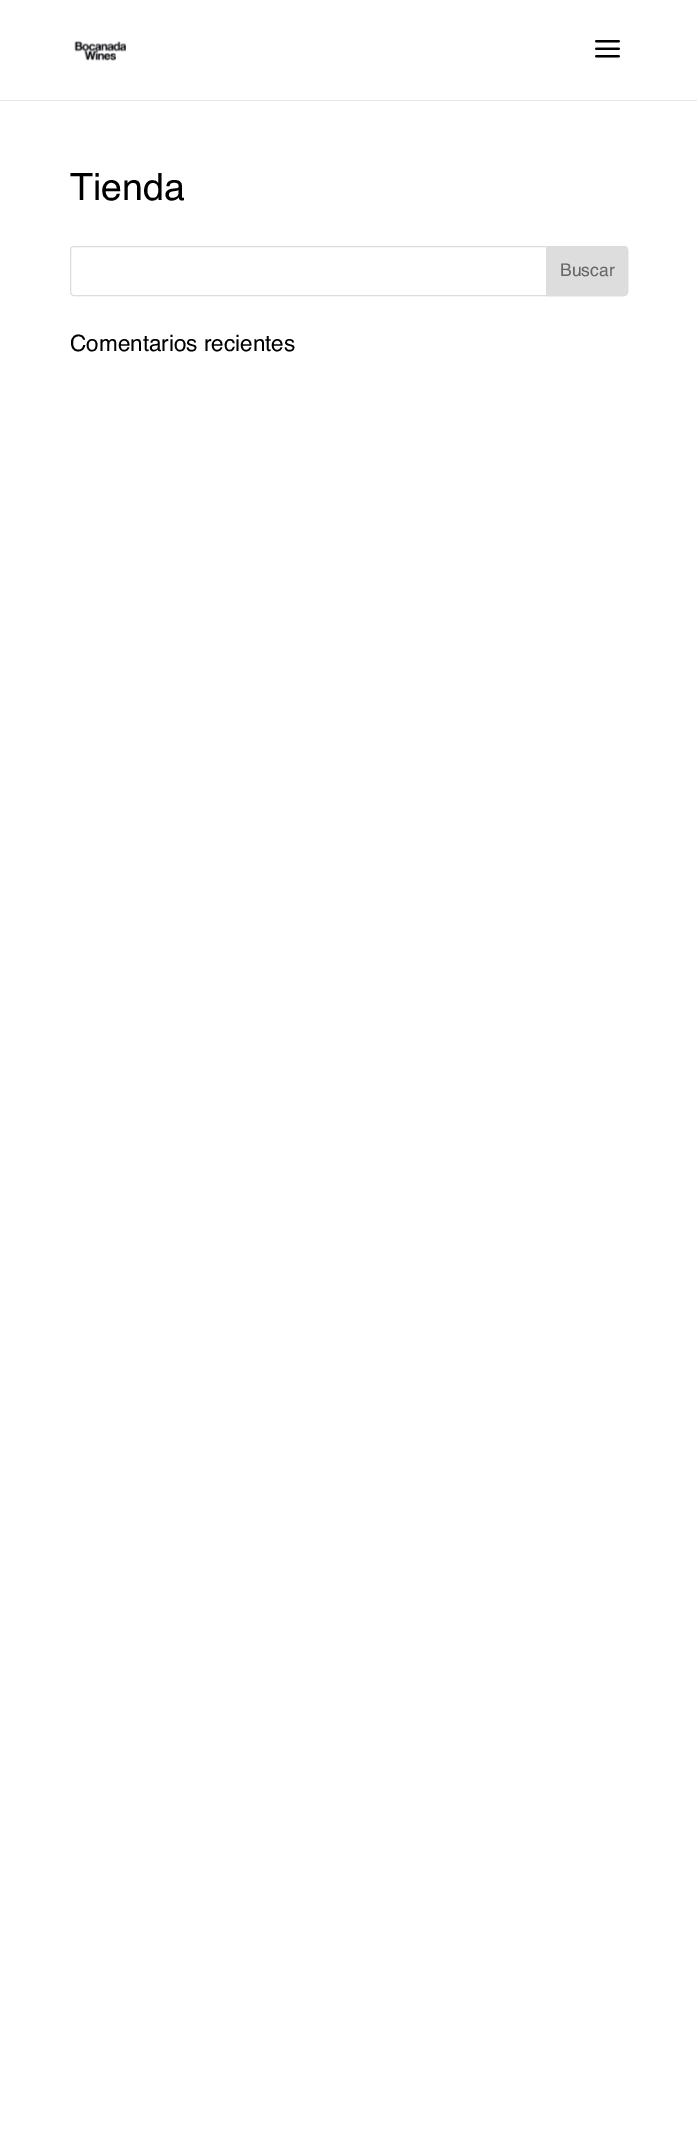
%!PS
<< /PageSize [697 2145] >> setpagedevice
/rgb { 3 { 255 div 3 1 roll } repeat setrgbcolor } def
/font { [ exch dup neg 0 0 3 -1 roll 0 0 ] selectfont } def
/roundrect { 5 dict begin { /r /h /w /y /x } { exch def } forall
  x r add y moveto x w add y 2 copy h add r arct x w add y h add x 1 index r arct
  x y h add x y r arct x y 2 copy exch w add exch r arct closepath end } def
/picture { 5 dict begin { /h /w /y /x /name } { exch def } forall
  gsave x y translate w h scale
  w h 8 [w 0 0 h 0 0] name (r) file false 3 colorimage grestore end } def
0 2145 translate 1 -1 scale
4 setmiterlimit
255 255 255 rgb
0 0 697 2145 rectfill
230 230 230 rgb
0 100 moveto 0 101 lineto 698 101 lineto 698 1 lineto 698 100 lineto closepath fill
(img/1.rgb) 74 41 53 20 picture
(img/2.rgb) 595 40 25 18 picture
221 221 221 rgb
70.5 246.5 557 49 3.5 roundrect stroke
546.5 246.5 moveto 624 246.5 lineto 626 246.5 627.5 248 627.5 250 curveto 627.5 292 lineto 627.5 294 626 295.5 624 295.5 curveto 546.5 295.5 lineto closepath gsave fill grestore
stroke
/Helvetica-Regular 37.5 font
0 0 0 rgb
70 200 moveto (Tienda) show
/Helvetica-Regular 17.5 font
102 102 102 rgb
560 276 moveto (Buscar) show
/Helvetica-Regular 22.5 font
0 0 0 rgb
70 351 moveto (Comentarios recientes) show
showpage
